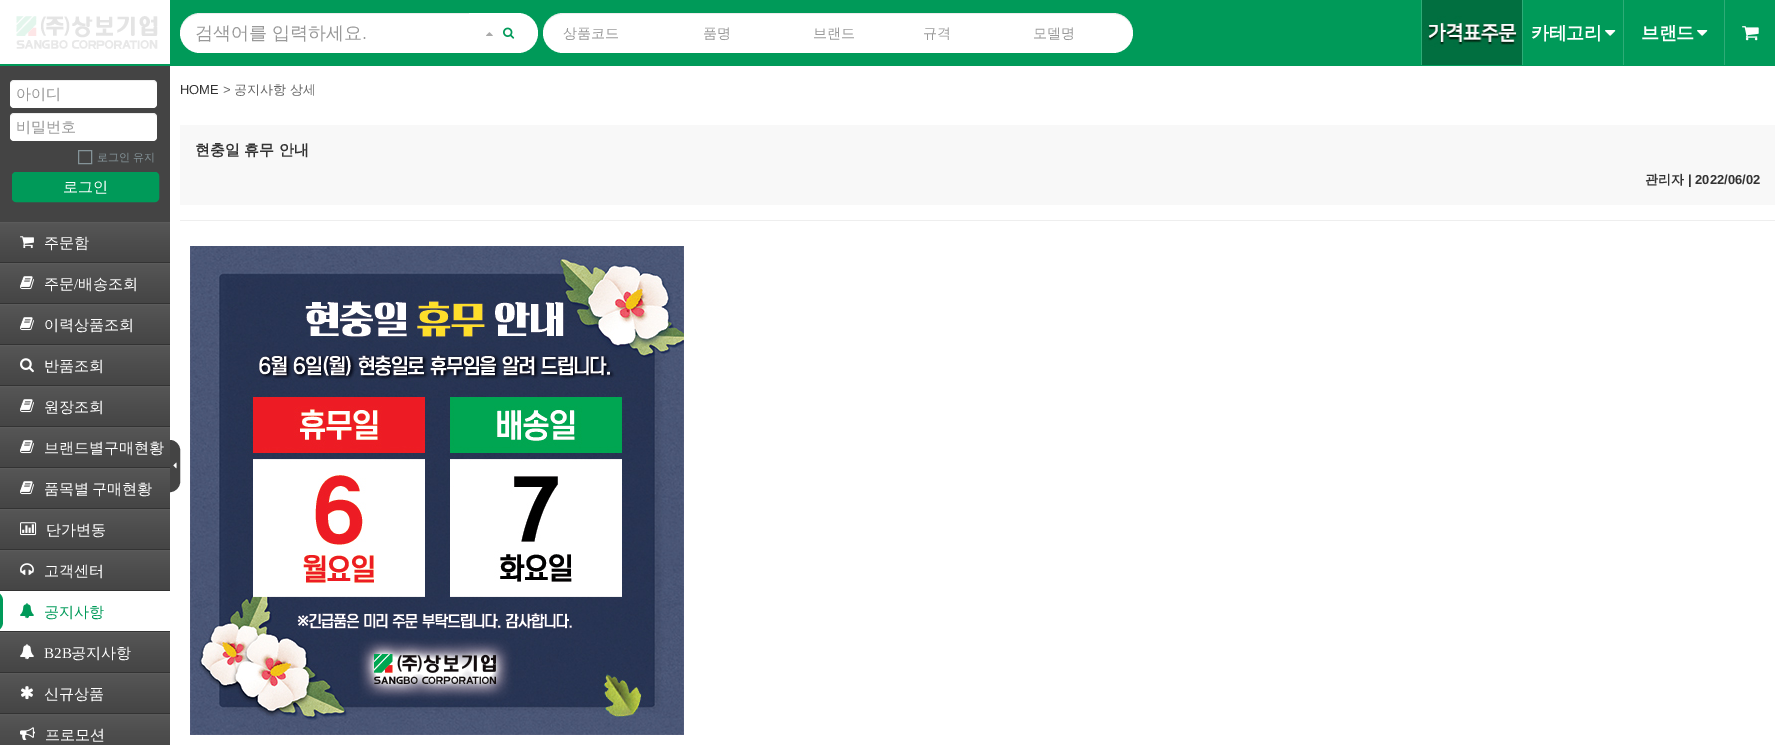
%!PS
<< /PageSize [1775 745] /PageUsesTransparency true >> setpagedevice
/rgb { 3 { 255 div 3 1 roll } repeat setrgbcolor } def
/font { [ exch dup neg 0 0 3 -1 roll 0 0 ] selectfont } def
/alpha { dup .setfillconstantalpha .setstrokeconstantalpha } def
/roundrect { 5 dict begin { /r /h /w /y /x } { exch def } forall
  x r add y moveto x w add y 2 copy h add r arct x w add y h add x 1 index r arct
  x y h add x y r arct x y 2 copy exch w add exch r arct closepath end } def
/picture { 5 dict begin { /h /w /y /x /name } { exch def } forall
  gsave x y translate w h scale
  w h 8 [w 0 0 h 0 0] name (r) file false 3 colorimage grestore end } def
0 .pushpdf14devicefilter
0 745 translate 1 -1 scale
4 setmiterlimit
255 255 255 rgb
0 0 1775 745 rectfill
0 154 89 rgb
0 64 170 2 rectfill
(img/1.rgb) 16 16 142 33 picture
170 0 1605 66 rectfill
255 255 255 rgb
200 13 moveto 470 13 lineto 470 53 lineto 200 53 lineto 189 53 180 44 180 33 curveto 180 22 189 13 200 13 curveto closepath fill
0.07 alpha
0 0 0 rgb
200 14 moveto 470 14 lineto 470 13 lineto 200 13 lineto 189 13 180 22 180 34 curveto 180 23 189 14 200 14 curveto closepath fill
1 alpha
255 255 255 rgb
469 13 29 40 rectfill
(img/2.rgb) 486 32 7 4 picture
498 13 moveto 518 13 lineto 529 13 538 22 538 33 curveto 538 44 529 53 518 53 curveto 498 53 lineto closepath fill
(img/3.rgb) 503 27 12 12 picture
563 13 moveto 693 13 lineto 693 53 lineto 563 53 lineto 552 53 543 44 543 33 curveto 543 22 552 13 563 13 curveto closepath fill
0.07 alpha
0 0 0 rgb
563 14 moveto 693 14 lineto 693 13 lineto 563 13 lineto 552 13 543 22 543 33 curveto 543 34 lineto 543 23 552 14 563 14 curveto closepath fill
1 alpha
255 255 255 rgb
693 14 330 39 rectfill
236 236 236 rgb
693 13 330 1 rectfill
255 255 255 rgb
1023 13 moveto 1113 13 lineto 1124 13 1133 22 1133 33 curveto 1133 44 1124 53 1113 53 curveto 1023 53 lineto closepath fill
0.07 alpha
0 0 0 rgb
1023 14 moveto 1113 14 lineto 1124 14 1133 23 1133 34 curveto 1133 24 1126 15 1117 13 curveto 1023 13 lineto closepath fill
1 alpha
46 172 119 rgb
1421 0 1 65 rectfill
(img/4.rgb) 1422 0 100 65 picture
1522 0 1 65 rectfill
(img/5.rgb) 1605 30 11 6 picture
1623 0 1 65 rectfill
(img/5.rgb) 1697 30 11 6 picture
1724 0 1 65 rectfill
(img/6.rgb) 1742 26 17 15 picture
248 248 248 rgb
180 125 1595 80 rectfill
238 238 238 rgb
180 220 1595 1 rectfill
(img/7.rgb) 190 246 494 489 picture
68 68 68 rgb
0 66 170 156 rectfill
255 255 255 rgb
10 80 147 28 4 roundrect fill
0.07 alpha
0 0 0 rgb
14 81 moveto 153 81 lineto 155 81 157 83 157 85 curveto 157 84 lineto 157 82 155 80 153 80 curveto 14 80 lineto 12 80 10 82 10 84 curveto 10 85 lineto 10 83 12 81 14 81 curveto closepath fill
1 alpha
255 255 255 rgb
10 113 147 28 4 roundrect fill
0.07 alpha
0 0 0 rgb
14 114 moveto 153 114 lineto 155 114 157 116 157 118 curveto 157 117 lineto 157 115 155 113 153 113 curveto 14 113 lineto 12 113 10 115 10 117 curveto 10 118 lineto 10 116 12 114 14 114 curveto closepath fill
1 alpha
132 147 152 rgb
78.5 150.5 13 13 rectstroke
0 154 89 rgb
12.5 172.5 146 29 3.5 roundrect gsave fill grestore
stroke
gsave 0 222 moveto 170 222 lineto 170 262 lineto 0 262 lineto closepath clip newpath
<< /ShadingType 2 /ColorSpace /DeviceRGB /Coords [105 222 105 262] /Extend [true true] /Function << /FunctionType 3 /Domain [0 1] /Functions [<< /FunctionType 2 /Domain [0 1] /C0 [0.357 0.357 0.357] /C1 [0.357 0.357 0.357] /N 1 >> << /FunctionType 2 /Domain [0 1] /C0 [0.357 0.357 0.357] /C1 [0.337 0.337 0.337] /N 1 >> << /FunctionType 2 /Domain [0 1] /C0 [0.337 0.337 0.337] /C1 [0.302 0.302 0.302] /N 1 >> << /FunctionType 2 /Domain [0 1] /C0 [0.302 0.302 0.302] /C1 [0.271 0.271 0.271] /N 1 >>] /Bounds [0.02 0.03 0.5] /Encode [0 1 0 1 0 1 0 1] >> >> shfill grestore
51 51 51 rgb
0 262 170 1 rectfill
(img/8.rgb) 20 236 14 13 picture
gsave 0 263 moveto 170 263 lineto 170 303 lineto 0 303 lineto closepath clip newpath
<< /ShadingType 2 /ColorSpace /DeviceRGB /Coords [105 263 105 303] /Extend [true true] /Function << /FunctionType 3 /Domain [0 1] /Functions [<< /FunctionType 2 /Domain [0 1] /C0 [0.357 0.357 0.357] /C1 [0.357 0.357 0.357] /N 1 >> << /FunctionType 2 /Domain [0 1] /C0 [0.357 0.357 0.357] /C1 [0.337 0.337 0.337] /N 1 >> << /FunctionType 2 /Domain [0 1] /C0 [0.337 0.337 0.337] /C1 [0.302 0.302 0.302] /N 1 >> << /FunctionType 2 /Domain [0 1] /C0 [0.302 0.302 0.302] /C1 [0.271 0.271 0.271] /N 1 >>] /Bounds [0.02 0.03 0.5] /Encode [0 1 0 1 0 1 0 1] >> >> shfill grestore
0 303 170 1 rectfill
(img/9.rgb) 20 276 14 14 picture
gsave 0 304 moveto 170 304 lineto 170 344 lineto 0 344 lineto closepath clip newpath
<< /ShadingType 2 /ColorSpace /DeviceRGB /Coords [105 304 105 344] /Extend [true true] /Function << /FunctionType 3 /Domain [0 1] /Functions [<< /FunctionType 2 /Domain [0 1] /C0 [0.357 0.357 0.357] /C1 [0.357 0.357 0.357] /N 1 >> << /FunctionType 2 /Domain [0 1] /C0 [0.357 0.357 0.357] /C1 [0.337 0.337 0.337] /N 1 >> << /FunctionType 2 /Domain [0 1] /C0 [0.337 0.337 0.337] /C1 [0.302 0.302 0.302] /N 1 >> << /FunctionType 2 /Domain [0 1] /C0 [0.302 0.302 0.302] /C1 [0.271 0.271 0.271] /N 1 >>] /Bounds [0.02 0.03 0.5] /Encode [0 1 0 1 0 1 0 1] >> >> shfill grestore
0 344 170 1 rectfill
(img/9.rgb) 20 317 14 14 picture
gsave 0 345 moveto 170 345 lineto 170 385 lineto 0 385 lineto closepath clip newpath
<< /ShadingType 2 /ColorSpace /DeviceRGB /Coords [105 345 105 385] /Extend [true true] /Function << /FunctionType 3 /Domain [0 1] /Functions [<< /FunctionType 2 /Domain [0 1] /C0 [0.357 0.357 0.357] /C1 [0.357 0.357 0.357] /N 1 >> << /FunctionType 2 /Domain [0 1] /C0 [0.357 0.357 0.357] /C1 [0.337 0.337 0.337] /N 1 >> << /FunctionType 2 /Domain [0 1] /C0 [0.337 0.337 0.337] /C1 [0.302 0.302 0.302] /N 1 >> << /FunctionType 2 /Domain [0 1] /C0 [0.302 0.302 0.302] /C1 [0.271 0.271 0.271] /N 1 >>] /Bounds [0.02 0.03 0.5] /Encode [0 1 0 1 0 1 0 1] >> >> shfill grestore
0 385 170 1 rectfill
(img/10.rgb) 20 358 14 15 picture
gsave 0 386 moveto 170 386 lineto 170 426 lineto 0 426 lineto closepath clip newpath
<< /ShadingType 2 /ColorSpace /DeviceRGB /Coords [105 386 105 426] /Extend [true true] /Function << /FunctionType 3 /Domain [0 1] /Functions [<< /FunctionType 2 /Domain [0 1] /C0 [0.357 0.357 0.357] /C1 [0.357 0.357 0.357] /N 1 >> << /FunctionType 2 /Domain [0 1] /C0 [0.357 0.357 0.357] /C1 [0.337 0.337 0.337] /N 1 >> << /FunctionType 2 /Domain [0 1] /C0 [0.337 0.337 0.337] /C1 [0.302 0.302 0.302] /N 1 >> << /FunctionType 2 /Domain [0 1] /C0 [0.302 0.302 0.302] /C1 [0.271 0.271 0.271] /N 1 >>] /Bounds [0.02 0.03 0.5] /Encode [0 1 0 1 0 1 0 1] >> >> shfill grestore
0 426 170 1 rectfill
(img/9.rgb) 20 399 14 14 picture
gsave 0 427 moveto 170 427 lineto 170 467 lineto 0 467 lineto closepath clip newpath
<< /ShadingType 2 /ColorSpace /DeviceRGB /Coords [105 427 105 467] /Extend [true true] /Function << /FunctionType 3 /Domain [0 1] /Functions [<< /FunctionType 2 /Domain [0 1] /C0 [0.357 0.357 0.357] /C1 [0.357 0.357 0.357] /N 1 >> << /FunctionType 2 /Domain [0 1] /C0 [0.357 0.357 0.357] /C1 [0.337 0.337 0.337] /N 1 >> << /FunctionType 2 /Domain [0 1] /C0 [0.337 0.337 0.337] /C1 [0.302 0.302 0.302] /N 1 >> << /FunctionType 2 /Domain [0 1] /C0 [0.302 0.302 0.302] /C1 [0.271 0.271 0.271] /N 1 >>] /Bounds [0.02 0.03 0.5] /Encode [0 1 0 1 0 1 0 1] >> >> shfill grestore
0 467 170 1 rectfill
(img/9.rgb) 20 440 14 14 picture
gsave 0 468 moveto 170 468 lineto 170 508 lineto 0 508 lineto closepath clip newpath
<< /ShadingType 2 /ColorSpace /DeviceRGB /Coords [105 468 105 508] /Extend [true true] /Function << /FunctionType 3 /Domain [0 1] /Functions [<< /FunctionType 2 /Domain [0 1] /C0 [0.357 0.357 0.357] /C1 [0.357 0.357 0.357] /N 1 >> << /FunctionType 2 /Domain [0 1] /C0 [0.357 0.357 0.357] /C1 [0.337 0.337 0.337] /N 1 >> << /FunctionType 2 /Domain [0 1] /C0 [0.337 0.337 0.337] /C1 [0.302 0.302 0.302] /N 1 >> << /FunctionType 2 /Domain [0 1] /C0 [0.302 0.302 0.302] /C1 [0.271 0.271 0.271] /N 1 >>] /Bounds [0.02 0.03 0.5] /Encode [0 1 0 1 0 1 0 1] >> >> shfill grestore
0 508 170 1 rectfill
(img/9.rgb) 20 481 14 14 picture
gsave 0 509 moveto 170 509 lineto 170 549 lineto 0 549 lineto closepath clip newpath
<< /ShadingType 2 /ColorSpace /DeviceRGB /Coords [105 509 105 549] /Extend [true true] /Function << /FunctionType 3 /Domain [0 1] /Functions [<< /FunctionType 2 /Domain [0 1] /C0 [0.357 0.357 0.357] /C1 [0.357 0.357 0.357] /N 1 >> << /FunctionType 2 /Domain [0 1] /C0 [0.357 0.357 0.357] /C1 [0.337 0.337 0.337] /N 1 >> << /FunctionType 2 /Domain [0 1] /C0 [0.337 0.337 0.337] /C1 [0.302 0.302 0.302] /N 1 >> << /FunctionType 2 /Domain [0 1] /C0 [0.302 0.302 0.302] /C1 [0.271 0.271 0.271] /N 1 >>] /Bounds [0.02 0.03 0.5] /Encode [0 1 0 1 0 1 0 1] >> >> shfill grestore
0 549 170 1 rectfill
(img/11.rgb) 20 522 17 14 picture
gsave 0 550 moveto 170 550 lineto 170 590 lineto 0 590 lineto closepath clip newpath
<< /ShadingType 2 /ColorSpace /DeviceRGB /Coords [105 550 105 590] /Extend [true true] /Function << /FunctionType 3 /Domain [0 1] /Functions [<< /FunctionType 2 /Domain [0 1] /C0 [0.357 0.357 0.357] /C1 [0.357 0.357 0.357] /N 1 >> << /FunctionType 2 /Domain [0 1] /C0 [0.357 0.357 0.357] /C1 [0.337 0.337 0.337] /N 1 >> << /FunctionType 2 /Domain [0 1] /C0 [0.337 0.337 0.337] /C1 [0.302 0.302 0.302] /N 1 >> << /FunctionType 2 /Domain [0 1] /C0 [0.302 0.302 0.302] /C1 [0.271 0.271 0.271] /N 1 >>] /Bounds [0.02 0.03 0.5] /Encode [0 1 0 1 0 1 0 1] >> >> shfill grestore
0 590 170 1 rectfill
(img/12.rgb) 20 563 14 12 picture
0 631 170 1 rectfill
0 154 89 rgb
0 591 moveto -7 591 lineto -1.5 591 3 595.5 3 601 curveto 3 622 lineto 3 627.5 -1.5 632 -7 632 curveto 0 632 lineto closepath fill
(img/13.rgb) 20 603 14 16 picture
gsave 0 632 moveto 170 632 lineto 170 672 lineto 0 672 lineto closepath clip newpath
<< /ShadingType 2 /ColorSpace /DeviceRGB /Coords [105 632 105 672] /Extend [true true] /Function << /FunctionType 3 /Domain [0 1] /Functions [<< /FunctionType 2 /Domain [0 1] /C0 [0.357 0.357 0.357] /C1 [0.357 0.357 0.357] /N 1 >> << /FunctionType 2 /Domain [0 1] /C0 [0.357 0.357 0.357] /C1 [0.337 0.337 0.337] /N 1 >> << /FunctionType 2 /Domain [0 1] /C0 [0.337 0.337 0.337] /C1 [0.302 0.302 0.302] /N 1 >> << /FunctionType 2 /Domain [0 1] /C0 [0.302 0.302 0.302] /C1 [0.271 0.271 0.271] /N 1 >>] /Bounds [0.02 0.03 0.5] /Encode [0 1 0 1 0 1 0 1] >> >> shfill grestore
51 51 51 rgb
0 672 170 1 rectfill
(img/14.rgb) 20 644 14 16 picture
gsave 0 673 moveto 170 673 lineto 170 713 lineto 0 713 lineto closepath clip newpath
<< /ShadingType 2 /ColorSpace /DeviceRGB /Coords [105 673 105 713] /Extend [true true] /Function << /FunctionType 3 /Domain [0 1] /Functions [<< /FunctionType 2 /Domain [0 1] /C0 [0.357 0.357 0.357] /C1 [0.357 0.357 0.357] /N 1 >> << /FunctionType 2 /Domain [0 1] /C0 [0.357 0.357 0.357] /C1 [0.337 0.337 0.337] /N 1 >> << /FunctionType 2 /Domain [0 1] /C0 [0.337 0.337 0.337] /C1 [0.302 0.302 0.302] /N 1 >> << /FunctionType 2 /Domain [0 1] /C0 [0.302 0.302 0.302] /C1 [0.271 0.271 0.271] /N 1 >>] /Bounds [0.02 0.03 0.5] /Encode [0 1 0 1 0 1 0 1] >> >> shfill grestore
0 713 170 1 rectfill
(img/15.rgb) 21 686 12 14 picture
gsave 0 714 moveto 170 714 lineto 170 745 lineto 0 745 lineto closepath clip newpath
<< /ShadingType 2 /ColorSpace /DeviceRGB /Coords [105 714 105 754] /Extend [true true] /Function << /FunctionType 3 /Domain [0 1] /Functions [<< /FunctionType 2 /Domain [0 1] /C0 [0.357 0.357 0.357] /C1 [0.357 0.357 0.357] /N 1 >> << /FunctionType 2 /Domain [0 1] /C0 [0.357 0.357 0.357] /C1 [0.337 0.337 0.337] /N 1 >> << /FunctionType 2 /Domain [0 1] /C0 [0.337 0.337 0.337] /C1 [0.302 0.302 0.302] /N 1 >> << /FunctionType 2 /Domain [0 1] /C0 [0.302 0.302 0.302] /C1 [0.271 0.271 0.271] /N 1 >>] /Bounds [0.02 0.03 0.5] /Encode [0 1 0 1 0 1 0 1] >> >> shfill grestore
(img/16.rgb) 20 727 15 14 picture
68 68 68 rgb
170.5 440.5 moveto 170 440.5 lineto 175 440.5 179.5 445 179.5 450 curveto 179.5 482 lineto 179.5 487 175 491.5 170 491.5 curveto 170.5 491.5 lineto closepath gsave fill grestore
stroke
(img/17.rgb) 173 462 4 7 picture
/WenQuanYiZenHei-Medium 18 font
153 153 153 rgb
195 39 moveto (검색어를 입력하세요) show
/LiberationSans-Regular 18 font
362 39 moveto (.) show
/WenQuanYiZenHei-Medium 14 font
[
  [(상품코드) 563 38]
  [(품명) 703 38]
  [(브랜드) 813 38]
  [(규격) 923 38]
  [(모델명) 1033 38]
] { aload pop moveto show } forall
/WenQuanYiZenHei-Bold 18 font
255 255 255 rgb
1531 39 moveto -0.5 0 (카테고리) ashow
1641 39 moveto -0.5 0 (브랜드) ashow
/LiberationSans-Regular 13 font
51 51 51 rgb
180 94 moveto (HOME) show
102 102 102 rgb
223 94 moveto (>) show
/WenQuanYiZenHei-Medium 13 font
234 94 moveto (공지사항 상세) show
/WenQuanYiZenHei-Bold 15 font
51 51 51 rgb
195 155 moveto (현충일 휴무 안내) show
/WenQuanYiZenHei-Bold 13 font
1645 184 moveto (관리자) show
/LiberationSans-Bold 13 font
1688 184 moveto (| 2022/06/02) show
/WenQuanYiZenHei-Medium 15 font
153 153 153 rgb
16 99 moveto (아이디) show
16 132 moveto (비밀번호) show
/WenQuanYiZenHei-Medium 11 font
132 147 152 rgb
97 161 moveto (로그인 유지) show
/WenQuanYiZenHei-Medium 15 font
255 255 255 rgb
[
  [(로그인) 63 192]
  [(주문함) 44 248]
  [(주문) 44 289]
] { aload pop moveto show } forall
/LiberationSerif-Regular 15 font
74 289 moveto (/) show
/WenQuanYiZenHei-Medium 15 font
[
  [(배송조회) 78 289]
  [(이력상품조회) 44 330]
  [(반품조회) 44 371]
  [(원장조회) 44 412]
  [(브랜드별구매현황) 44 453]
] { aload pop moveto show } forall
44 494 moveto -1 0 32 (품목별 구매현황) widthshow
46 535 moveto (단가변동) show
44 576 moveto (고객센터) show
0 154 89 rgb
44 617 moveto (공지사항) show
/LiberationSerif-Regular 15 font
255 255 255 rgb
44 658 moveto (B2B) show
/WenQuanYiZenHei-Medium 15 font
[
  [(공지사항) 71 658]
  [(신규상품) 44 699]
  [(프로모션) 45 740]
] { aload pop moveto show } forall
.poppdf14devicefilter showpage
